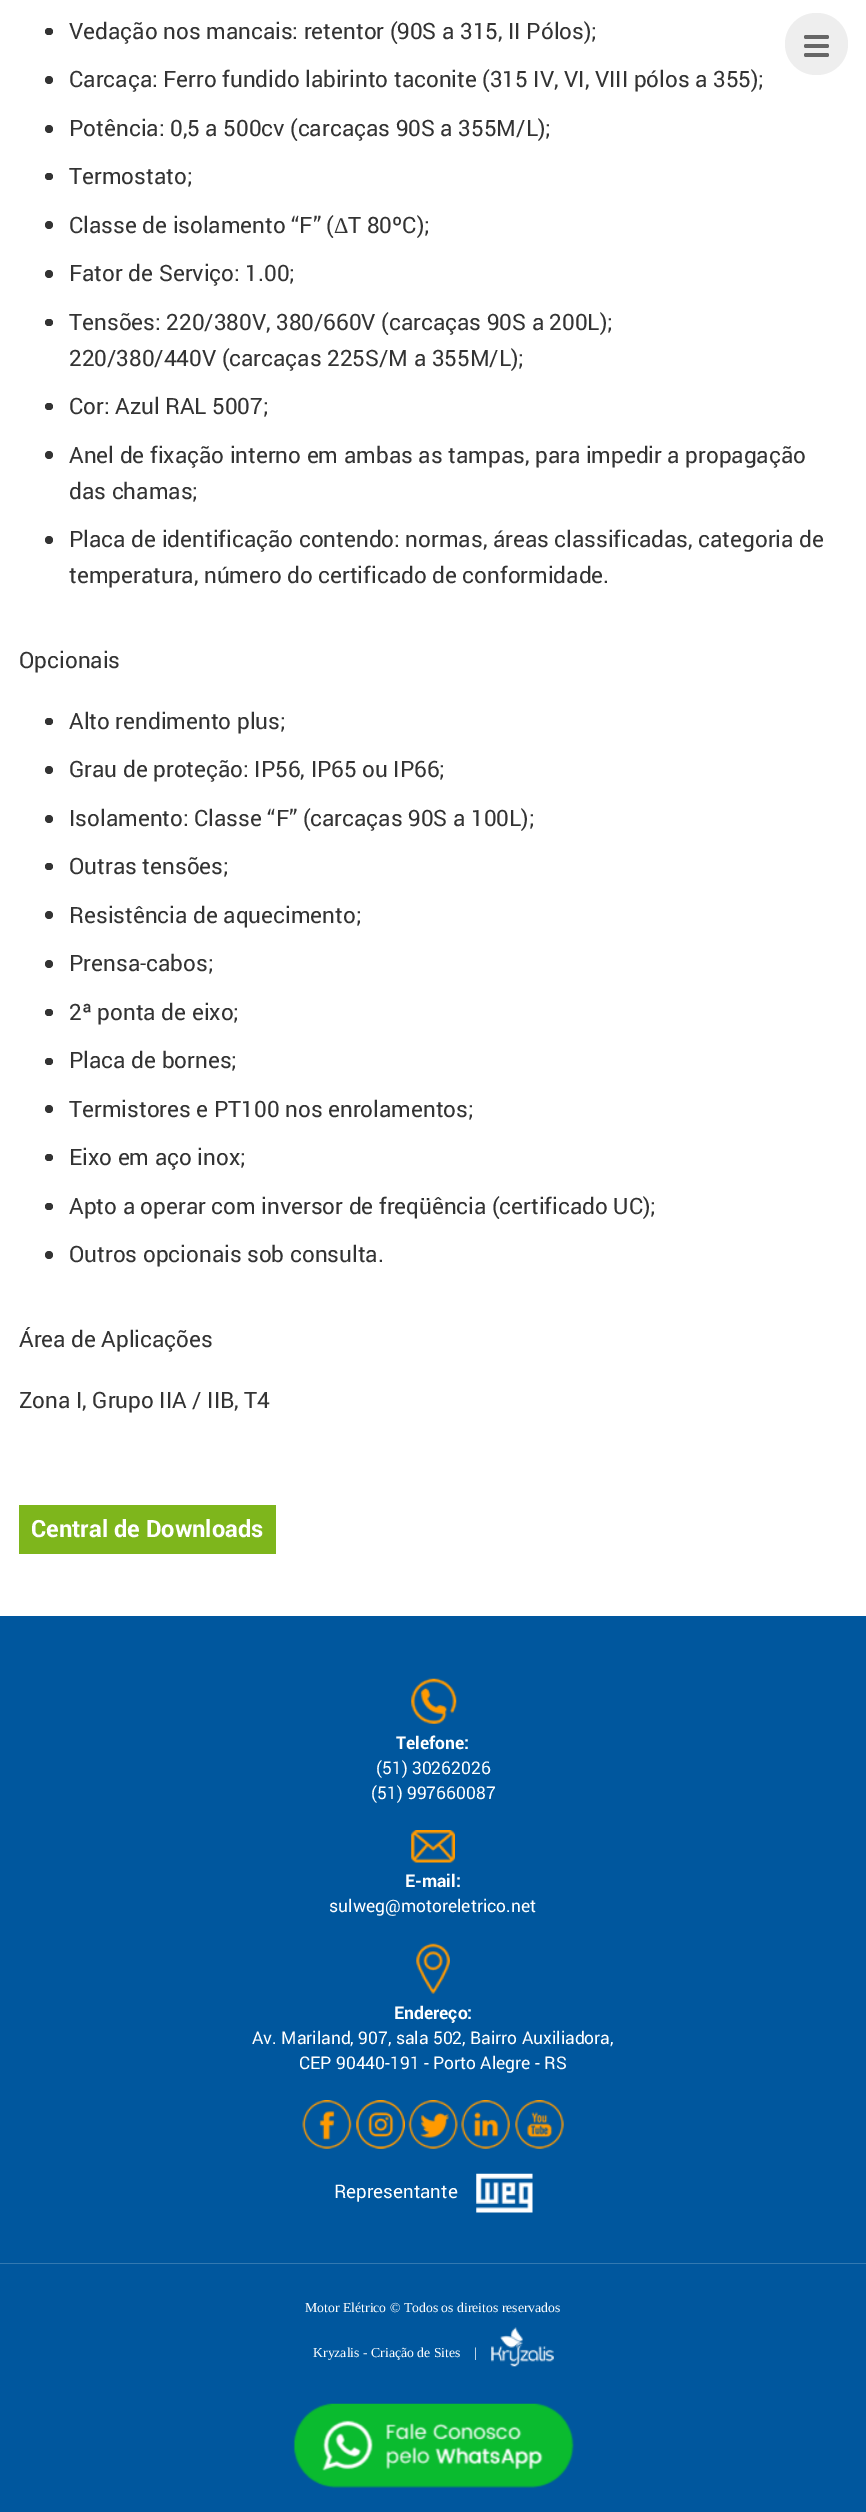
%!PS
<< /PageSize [866 2512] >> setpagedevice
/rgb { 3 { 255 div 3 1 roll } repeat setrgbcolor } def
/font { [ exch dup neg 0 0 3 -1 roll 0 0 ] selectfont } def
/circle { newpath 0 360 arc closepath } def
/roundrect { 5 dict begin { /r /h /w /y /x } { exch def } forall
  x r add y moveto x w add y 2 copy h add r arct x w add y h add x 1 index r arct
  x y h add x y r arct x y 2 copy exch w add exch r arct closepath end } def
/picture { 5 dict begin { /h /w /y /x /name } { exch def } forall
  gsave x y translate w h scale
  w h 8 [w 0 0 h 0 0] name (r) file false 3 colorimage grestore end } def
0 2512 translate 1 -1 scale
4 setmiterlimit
255 255 255 rgb
0 0 866 2512 rectfill
238 238 238 rgb
785 13 63 62 31 roundrect fill
102 102 102 rgb
804 35 25 4 2 roundrect fill
804 44 25 4 2 roundrect fill
804 53 25 4 2 roundrect fill
51 51 51 rgb
45 28 8 7 3.5 roundrect fill
49 80 4 circle fill
49 129 4 circle fill
45 173 8 7 3.5 roundrect fill
49 225 4 circle fill
49 274 4 circle fill
45 319 8 7 3.5 roundrect fill
45 403 8 7 3.5 roundrect fill
49 455 4 circle fill
49 540 4 circle fill
45 718 8 7 3.5 roundrect fill
49 770 4 circle fill
49 819 4 circle fill
45 863 8 7 3.5 roundrect fill
49 915 4 circle fill
49 964 4 circle fill
45 1009 8 7 3.5 roundrect fill
45 1058 8 7 3.5 roundrect fill
49 1109 4 circle fill
45 1154 8 7 3.5 roundrect fill
45 1203 8 7 3.5 roundrect fill
49 1255 4 circle fill
126 182 28 rgb
19 1505 257 49 rectfill
0 87 158 rgb
0 1616 866 896 rectfill
(img/1.rgb) 411 1678 46 46 picture
(img/2.rgb) 411 1830 44 33 picture
(img/3.rgb) 416 1943 34 51 picture
(img/4.rgb) 302 2100 50 49 picture
(img/5.rgb) 356 2100 49 49 picture
(img/6.rgb) 408 2100 50 49 picture
(img/7.rgb) 461 2100 49 49 picture
(img/8.rgb) 515 2100 49 49 picture
(img/9.rgb) 476 2173 57 40 picture
51 121 177 rgb
0 2263 866 1 rectfill
(img/10.rgb) 491 2327 63 40 picture
(img/11.rgb) 293 2403 281 85 picture
/Roboto-Regular 22.5 font
51 51 51 rgb
[
  [(Vedação nos mancais: retentor \(90S a 315, II Pólos\);) 69 39]
  [(Carcaça: Ferro fundido labirinto taconite \(315 IV, VI, VIII pólos a 355\);) 69 87]
  [(Potência: 0,5 a 500cv \(carcaças 90S a 355M/L\);) 69 136]
  [(Termostato;) 69 184]
  [(Classe de isolamento “F” \() 69 233]
] { aload pop moveto show } forall
/LiberationSerif-Regular 22.5 font
334 233 moveto (Δ) show
/Roboto-Regular 22.5 font
[
  [(T 80ºC\);) 348 233]
  [(Fator de Serviço: 1.00;) 69 281]
  [(Tensões: 220/380V, 380/660V \(carcaças 90S a 200L\);) 69 330]
  [(220/380/440V \(carcaças 225S/M a 355M/L\);) 69 366]
  [(Cor: Azul RAL 5007;) 69 414]
  [(Anel de fixação interno em ambas as tampas, para impedir a propagação) 69 463]
  [(das chamas;) 69 499]
  [(Placa de identificação contendo: normas, áreas classificadas, categoria de) 69 547]
  [(temperatura, número do certificado de conformidade.) 69 583]
  [(Opcionais) 19 668]
  [(Alto rendimento plus;) 69 729]
  [(Grau de proteção: IP56, IP65 ou IP66;) 69 777]
  [(Isolamento: Classe “F” \(carcaças 90S a 100L\);) 69 826]
  [(Outras tensões;) 69 874]
  [(Resistência de aquecimento;) 69 923]
  [(Prensa-cabos;) 69 971]
  [(2ª ponta de eixo;) 69 1020]
  [(Placa de bornes;) 69 1068]
  [(Termistores e PT100 nos enrolamentos;) 69 1117]
  [(Eixo em aço inox;) 69 1165]
  [(Apto a operar com inversor de freqüência \(certificado UC\);) 69 1214]
  [(Outros opcionais sob consulta.) 69 1262]
  [(Área de Aplicações) 19 1347]
  [(Zona I, Grupo IIA / IIB, T4) 19 1408]
] { aload pop moveto show } forall
/Roboto-Bold 23.75 font
255 255 255 rgb
31 1537 moveto (Central de Downloads) show
/Roboto-Bold 17.5 font
396 1749 moveto (Telefone:) show
/Roboto-Regular 17.5 font
376 1774 moveto (\(51\) 30262026) show
371 1799 moveto (\(51\) 997660087) show
/Roboto-Bold 17.5 font
405 1887 moveto (E-mail:) show
/Roboto-Regular 17.5 font
329 1912 moveto (sulweg@motoreletrico.net) show
/Roboto-Bold 17.5 font
394 2019 moveto (Endereço:) show
/Roboto-Regular 17.5 font
252 2044 moveto (Av. Mariland, 907, sala 502, Bairro Auxiliadora,) show
299 2069 moveto (CEP 90440-191 - Porto Alegre - RS) show
/Roboto-Regular 18.75 font
334 2198 moveto (Representante) show
/LiberationSerif-Regular 13.75 font
305 2312 moveto (Motor Elétrico © Todos os direitos reservados) show
313 2357 moveto (Kryzalis - Criação de Sites    |) show
showpage
